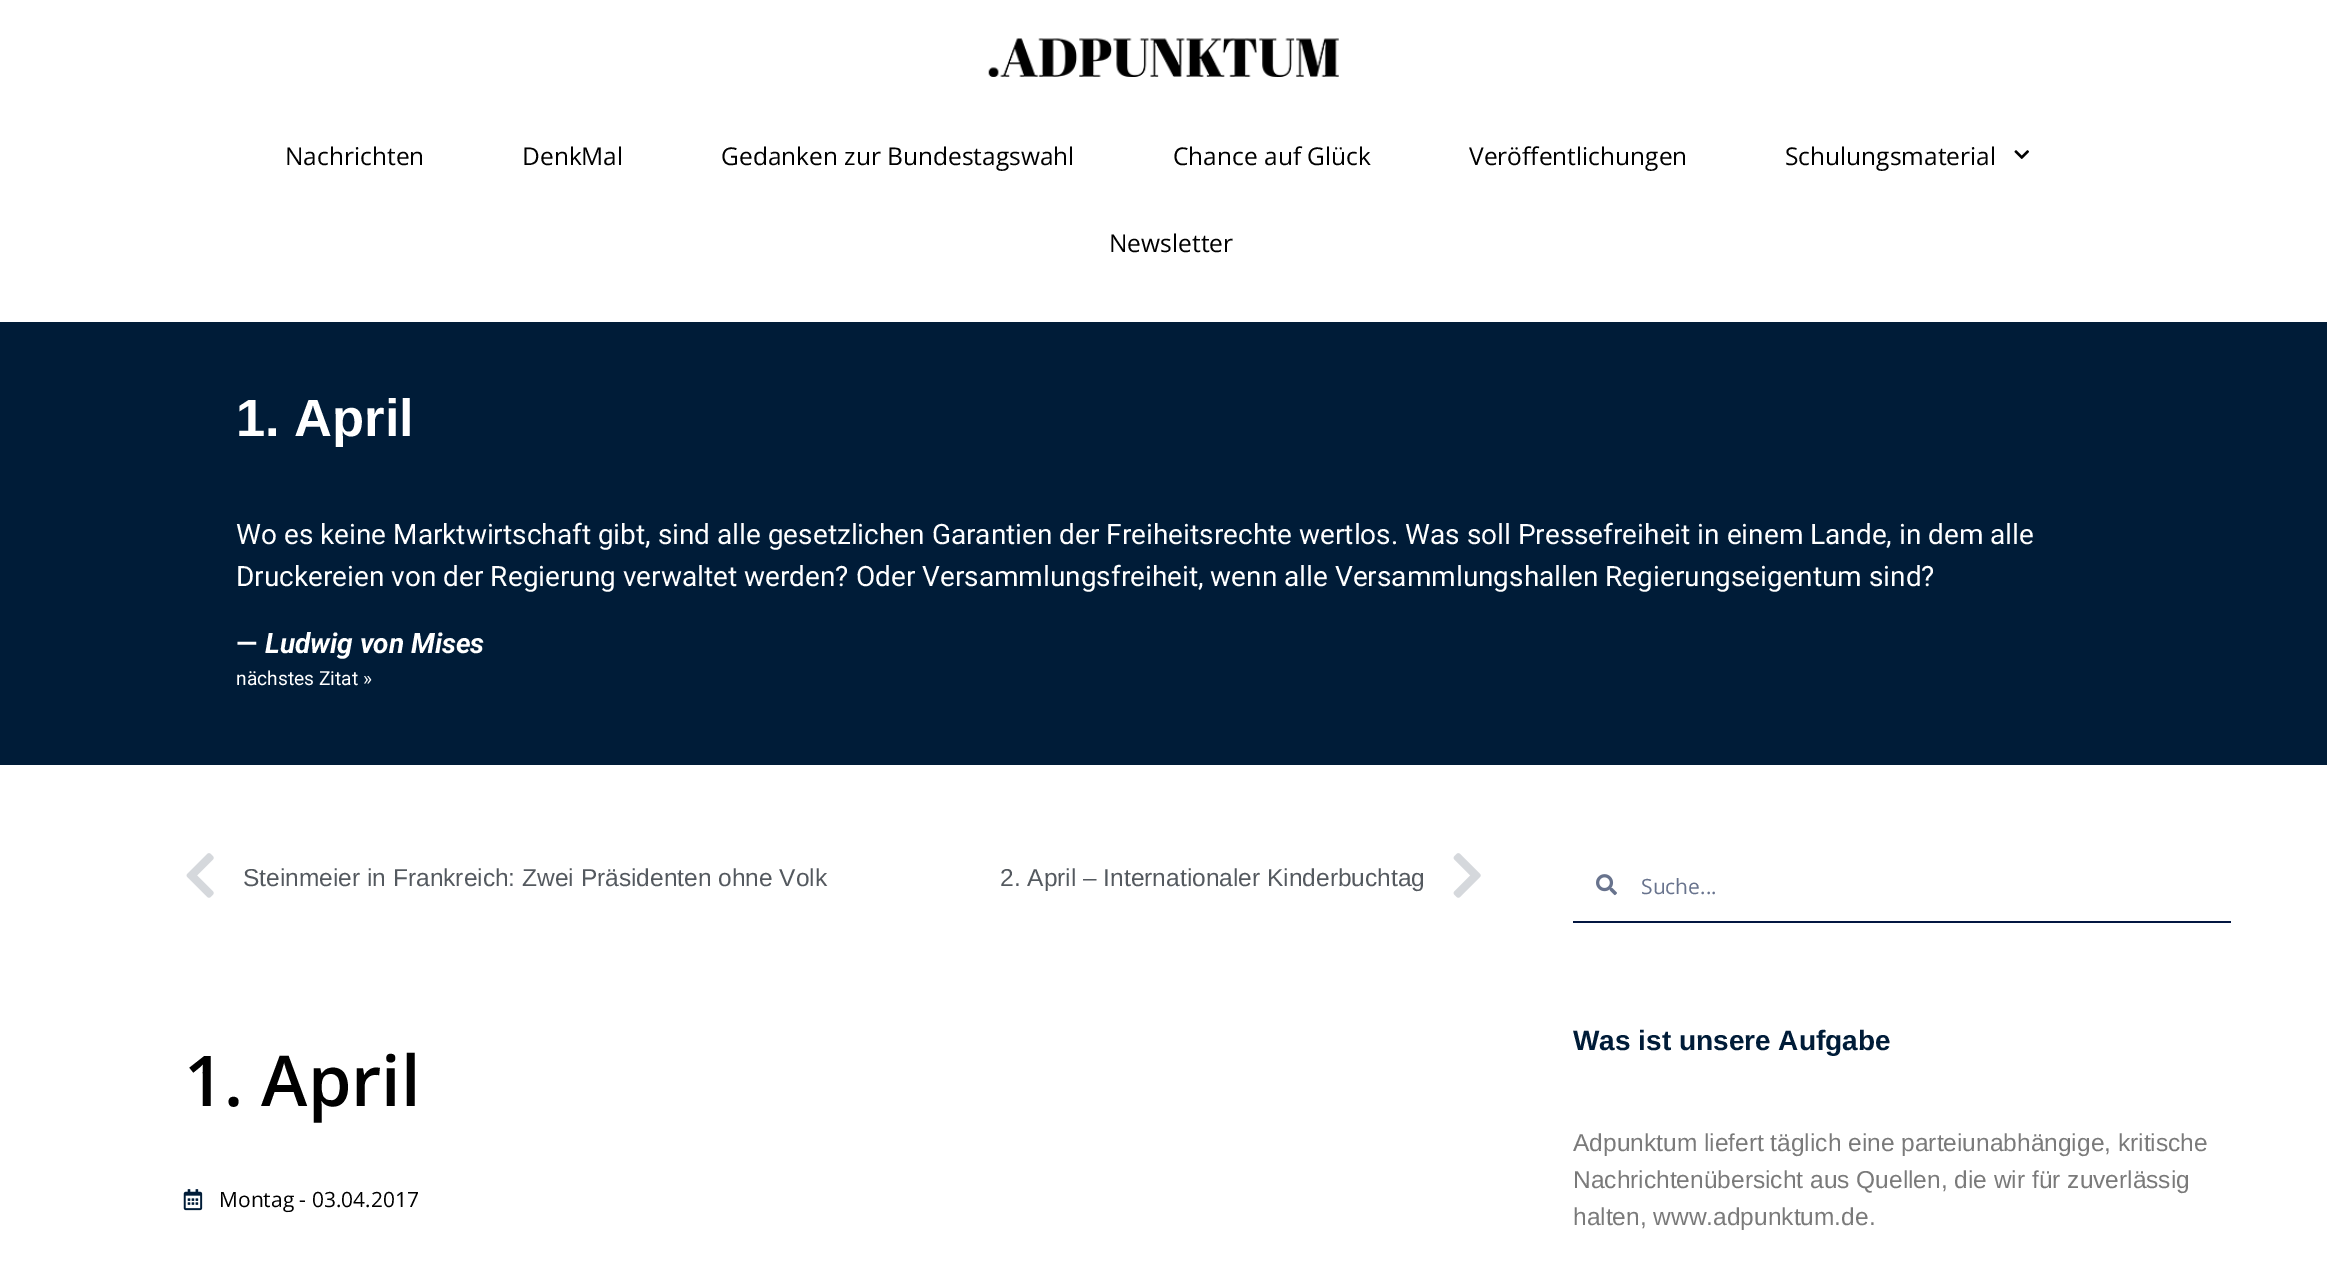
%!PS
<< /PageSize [2327 1272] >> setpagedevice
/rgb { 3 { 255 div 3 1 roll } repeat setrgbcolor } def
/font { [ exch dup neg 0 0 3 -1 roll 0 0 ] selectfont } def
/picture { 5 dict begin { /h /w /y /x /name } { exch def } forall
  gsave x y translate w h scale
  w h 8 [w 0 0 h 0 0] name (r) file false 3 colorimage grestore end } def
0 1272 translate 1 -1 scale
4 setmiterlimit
255 255 255 rgb
0 0 2327 1272 rectfill
(img/1.rgb) 988 38 351 39 picture
(img/2.rgb) 2014 150 15 9 picture
0 28 56 rgb
0 322 2327 443 rectfill
(img/3.rgb) 186 853 28 45 picture
(img/4.rgb) 1453 853 28 45 picture
(img/5.rgb) 183 1189 20 22 picture
3 22 65 rgb
1573 921 658 2 rectfill
(img/6.rgb) 1596 874 21 22 picture
/OpenSans-Regular 24.5 font
0 0 0 rgb
[
  [(Nachrichten) 285 165]
  [(DenkMal) 522 165]
  [(Gedanken zur Bundestagswahl) 721 165]
  [(Chance auf Glück) 1173 165]
  [(Veröffentlichungen) 1469 165]
  [(Schulungsmaterial) 1785 165]
  [(Newsletter) 1109 252]
] { aload pop moveto show } forall
/LiberationSans-Bold 52.5 font
255 255 255 rgb
236 436 moveto (1. April) show
/Roboto-Regular 28 font
236 544 moveto (Wo es keine Marktwirtschaft gibt, sind alle gesetzlichen Garantien der Freiheitsrechte wertlos. Was soll Pressefreiheit in einem Lande, in dem alle) show
236 586 moveto (Druckereien von der Regierung verwaltet werden? Oder Versammlungsfreiheit, wenn alle Versammlungshallen Regierungseigentum sind?) show
/Roboto-Bold 28 font
236 653 moveto (—) show
/Roboto-BoldItalic 28 font
265 653 moveto (Ludwig von Mises) show
/Roboto-Regular 19.25 font
236 685 moveto (nächstes Zitat ») show
/LiberationSans-Regular 24.5 font
84 89 95 rgb
243 886 moveto (Steinmeier in Frankreich: Zwei Präsidenten ohne Volk) show
1000 886 moveto (2. April – Internationaler Kinderbuchtag) show
/OpenSans-SemiBold 70 font
0 0 0 rgb
184 1106 moveto (1. April) show
/OpenSans-Regular 21 font
219 1207 moveto (Montag - 03.04.2017) show
104 115 141 rgb
1641 894 moveto (Suche...) show
/LiberationSans-Bold 28 font
0 28 56 rgb
1573 1050 moveto (Was ist unsere Aufgabe) show
/LiberationSans-Regular 24.5 font
122 122 122 rgb
[
  [(Adpunktum liefert täglich eine parteiunabhängige, kritische) 1573 1151]
  [(Nachrichtenübersicht aus Quellen, die wir für zuverlässig) 1573 1188]
  [(halten, www.adpunktum.de.) 1573 1225]
] { aload pop moveto show } forall
showpage
